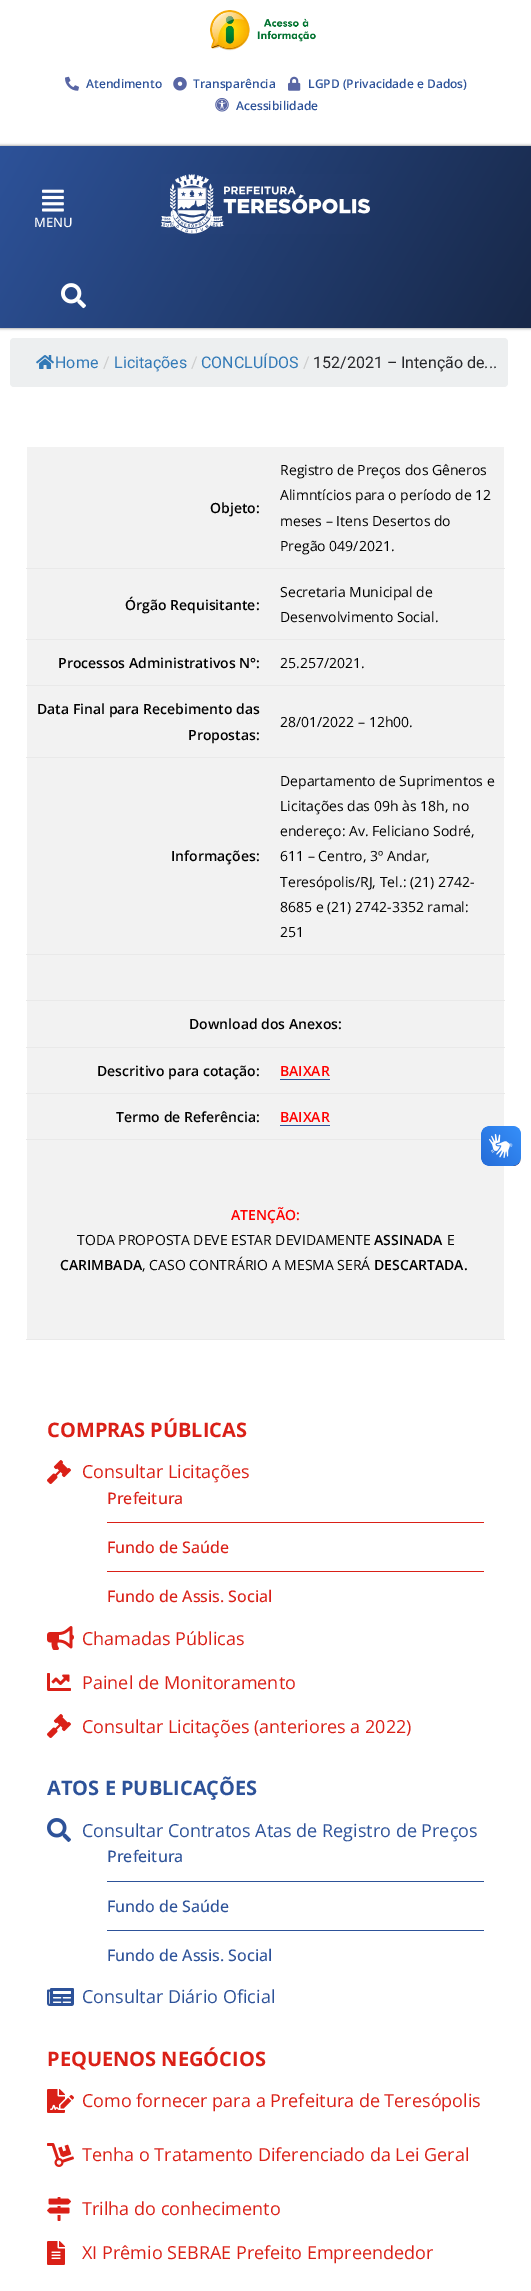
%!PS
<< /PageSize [531 2291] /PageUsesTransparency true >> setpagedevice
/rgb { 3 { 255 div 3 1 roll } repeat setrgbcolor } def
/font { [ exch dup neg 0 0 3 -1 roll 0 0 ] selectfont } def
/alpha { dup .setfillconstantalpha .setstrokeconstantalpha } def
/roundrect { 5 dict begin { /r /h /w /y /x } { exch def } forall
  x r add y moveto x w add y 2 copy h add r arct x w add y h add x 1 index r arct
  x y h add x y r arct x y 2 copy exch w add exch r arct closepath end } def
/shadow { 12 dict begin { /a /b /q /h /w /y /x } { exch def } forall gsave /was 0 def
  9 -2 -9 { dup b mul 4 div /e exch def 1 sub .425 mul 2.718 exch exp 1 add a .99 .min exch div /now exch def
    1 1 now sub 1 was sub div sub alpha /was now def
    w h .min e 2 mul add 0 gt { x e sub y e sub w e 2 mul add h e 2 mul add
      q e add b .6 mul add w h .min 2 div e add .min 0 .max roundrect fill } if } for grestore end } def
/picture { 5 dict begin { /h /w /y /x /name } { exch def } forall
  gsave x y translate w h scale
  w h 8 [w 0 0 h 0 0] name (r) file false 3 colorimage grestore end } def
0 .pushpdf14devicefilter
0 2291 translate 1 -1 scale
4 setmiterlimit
255 255 255 rgb
0 0 531 2291 rectfill
(img/1.rgb) 210 10 106 41 picture
(img/2.rgb) 65 76 14 15 picture
(img/3.rgb) 173 77 14 14 picture
(img/4.rgb) 288 76 13 15 picture
(img/5.rgb) 215 98 14 14 picture
0 0 0 rgb
0 146 531 182 0 1.5 0.5 shadow
gsave 0 146 moveto 531 146 lineto 531 328 lineto 0 328 lineto closepath clip newpath
<< /ShadingType 2 /ColorSpace /DeviceRGB /Coords [27 99 504 375] /Extend [true true] /Function << /FunctionType 2 /Domain [0 1] /C0 [0.176 0.322 0.6] /C1 [0.094 0.157 0.282] /N 1 >> >> shfill grestore
(img/6.rgb) 42 189 22 23 picture
(img/7.rgb) 161 174 209 60 picture
(img/8.rgb) 61 283 25 26 picture
237 239 240 rgb
10 338 498 49 4 roundrect fill
(img/9.rgb) 36 355 18 14 picture
[
  [27 447 477 121 242 242 242]
  [26 568 479 1 233 233 233]
  [27 569 477 70 242 242 242]
  [26 639 479 1 233 233 233]
  [27 640 477 45 242 242 242]
  [26 685 479 1 233 233 233]
  [27 686 477 71 242 242 242]
  [26 757 479 1 233 233 233]
  [27 758 477 196 242 242 242]
  [26 954 479 1 233 233 233]
  [27 955 477 45 242 242 242]
  [26 1000 479 1 233 233 233]
  [27 1001 477 46 242 242 242]
  [26 1047 479 1 233 233 233]
  [27 1048 477 45 242 242 242]
  [26 1093 479 1 233 233 233]
  [280 1079 50 1 44 81 152]
  [27 1094 477 45 242 242 242]
  [26 1139 455 1 233 233 233]
  [280 1125 50 1 44 81 152]
  [27 1140 477 199 242 242 242]
  [26 1339 479 1 233 233 233]
] { aload pop rgb rectfill } forall
(img/10.rgb) 47 1460 24 24 picture
218 32 23 rgb
107 1522 377 1 rectfill
107 1571 377 1 rectfill
(img/11.rgb) 47 1626 27 24 picture
(img/12.rgb) 47 1673 24 18 picture
(img/10.rgb) 47 1714 24 24 picture
(img/13.rgb) 47 1818 24 24 picture
45 82 153 rgb
107 1881 377 1 rectfill
107 1930 377 1 rectfill
(img/14.rgb) 47 1988 27 18 picture
(img/15.rgb) 47 2089 27 24 picture
(img/16.rgb) 47 2143 27 24 picture
(img/17.rgb) 47 2197 24 24 picture
(img/18.rgb) 47 2241 18 24 picture
(img/19.rgb) 481 1126 40 40 picture
(img/20.rgb) 481 1126 40 40 picture
/OpenSans-SemiBold 12 font
[
  [(Atendimento) 86 88]
  [(Transparência) 193 88]
  [(LGPD \(Privacidade e Dados\)) 308 88]
  [(Acessibilidade) 236 110]
] { aload pop moveto show } forall
/OpenSans-Medium 13 font
255 255 255 rgb
34 227 moveto (MENU) show
/Roboto-Regular 16 font
51 122 183 rgb
55 368 moveto (Home) show
204 204 204 rgb
103 368 moveto (/) show
51 122 183 rgb
114 368 moveto (Licitações) show
204 204 204 rgb
191 368 moveto (/) show
51 122 183 rgb
201 368 moveto (CONCLUÍDOS) show
204 204 204 rgb
303 368 moveto (/) show
39 39 42 rgb
313 368 moveto (152/2021 – Intenção de...) show
/OpenSans-SemiBold 14 font
0 0 0 rgb
210 513 moveto (Objeto:) show
/OpenSans-Regular 14 font
[
  [(Registro de Preços dos Gêneros) 280 475]
  [(Alimntícios para o período de 12) 280 500]
  [(meses – Itens Desertos do) 280 526]
  [(Pregão 049/2021.) 280 551]
] { aload pop moveto show } forall
/OpenSans-SemiBold 14 font
125 610 moveto (Órgão Requisitante:) show
/OpenSans-Regular 14 font
280 597 moveto (Secretaria Municipal de) show
280 622 moveto (Desenvolvimento Social.) show
/OpenSans-SemiBold 14 font
58 668 moveto (Processos Administrativos N°:) show
/OpenSans-Regular 14 font
280 668 moveto (25.257/2021.) show
/OpenSans-SemiBold 14 font
37 714 moveto (Data Final para Recebimento das) show
188 740 moveto (Propostas:) show
/OpenSans-Regular 14 font
280 727 moveto (28/01/2022 – 12h00.) show
/OpenSans-SemiBold 14 font
171 861 moveto (Informações:) show
/OpenSans-Regular 14 font
[
  [(Departamento de Suprimentos e) 280 786]
  [(Licitações das 09h às 18h, no) 280 811]
  [(endereço: Av. Feliciano Sodré,) 280 836]
  [(611 – Centro, 3º Andar,) 280 861]
  [(Teresópolis/RJ, Tel.: \(21\) 2742-) 280 887]
  [(8685 e \(21\) 2742-3352 ramal:) 280 912]
  [(251) 280 937]
] { aload pop moveto show } forall
/OpenSans-SemiBold 14 font
189 1029 moveto (Download dos Anexos:) show
97 1076 moveto (Descritivo para cotação:) show
255 0 0 rgb
280 1076 moveto (BAIXAR) show
0 0 0 rgb
116 1122 moveto (Termo de Referência:) show
255 0 0 rgb
280 1122 moveto (BAIXAR) show
231 1220 moveto (ATENÇÃO:) show
/OpenSans-Regular 14 font
0 0 0 rgb
77 1245 moveto (TODA PROPOSTA DEVE ESTAR DEVIDAMENTE) show
/OpenSans-SemiBold 14 font
374 1245 moveto (ASSINADA) show
/OpenSans-Regular 14 font
447 1245 moveto (E) show
/OpenSans-SemiBold 14 font
60 1270 moveto (CARIMBADA) show
/OpenSans-Regular 14 font
142 1270 moveto (, CASO CONTRÁRIO A MESMA SERÁ) show
/OpenSans-SemiBold 14 font
374 1270 moveto (DESCARTADA.) show
/OpenSans-Bold 20 font
218 32 23 rgb
47 1437 moveto (COMPRAS PÚBLICAS) show
/OpenSans-Regular 18 font
82 1478 moveto (Consultar Licitações) show
/OpenSans-Medium 16 font
[
  [(Prefeitura) 107 1504]
  [(Fundo de Saúde) 107 1553]
  [(Fundo de Assis. Social) 107 1602]
] { aload pop moveto show } forall
/OpenSans-Regular 18 font
[
  [(Chamadas Públicas) 82 1645]
  [(Painel de Monitoramento) 82 1689]
  [(Consultar Licitações \(anteriores a 2022\)) 82 1733]
] { aload pop moveto show } forall
/OpenSans-Bold 20 font
45 82 153 rgb
47 1795 moveto (ATOS E PUBLICAÇÕES) show
/OpenSans-Regular 18 font
82 1837 moveto (Consultar Contratos Atas de Registro de Preços) show
/OpenSans-Medium 16 font
[
  [(Prefeitura) 107 1862]
  [(Fundo de Saúde) 107 1912]
  [(Fundo de Assis. Social) 107 1961]
] { aload pop moveto show } forall
/OpenSans-Regular 18 font
82 2003 moveto (Consultar Diário Oficial) show
/OpenSans-Bold 20 font
218 32 23 rgb
47 2066 moveto (PEQUENOS NEGÓCIOS) show
/OpenSans-Regular 18 font
[
  [(Como fornecer para a Prefeitura de Teresópolis) 82 2107]
  [(Tenha o Tratamento Diferenciado da Lei Geral) 82 2161]
  [(Trilha do conhecimento) 82 2215]
  [(XI Prêmio SEBRAE Prefeito Empreendedor) 82 2259]
] { aload pop moveto show } forall
.poppdf14devicefilter showpage
